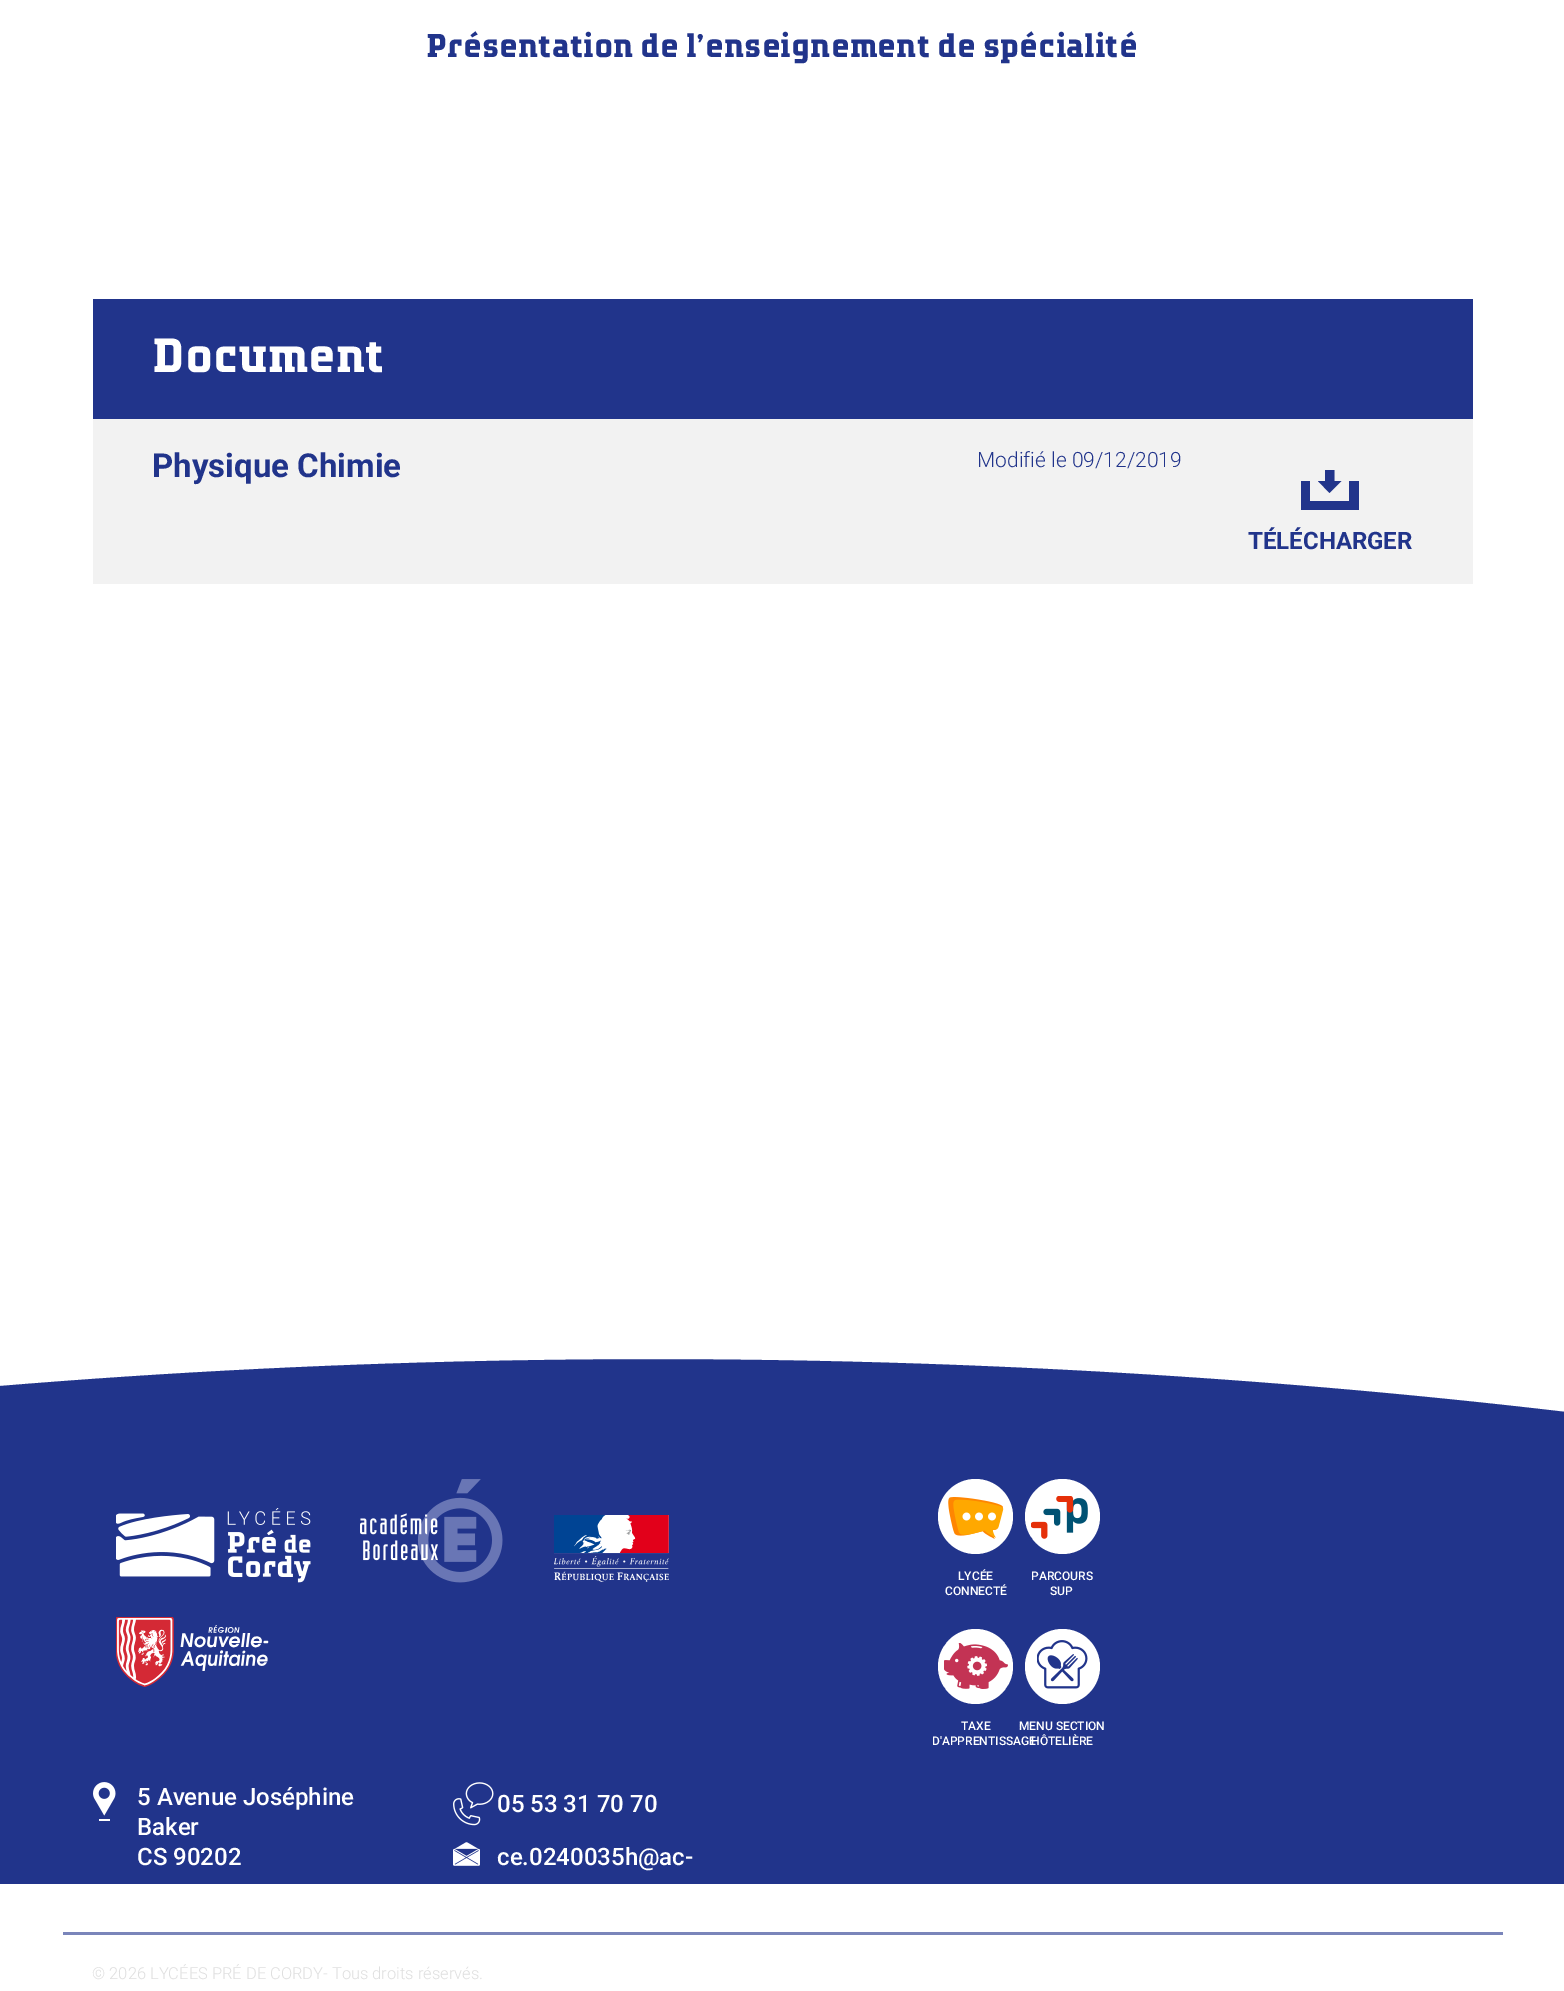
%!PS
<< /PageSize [1564 1991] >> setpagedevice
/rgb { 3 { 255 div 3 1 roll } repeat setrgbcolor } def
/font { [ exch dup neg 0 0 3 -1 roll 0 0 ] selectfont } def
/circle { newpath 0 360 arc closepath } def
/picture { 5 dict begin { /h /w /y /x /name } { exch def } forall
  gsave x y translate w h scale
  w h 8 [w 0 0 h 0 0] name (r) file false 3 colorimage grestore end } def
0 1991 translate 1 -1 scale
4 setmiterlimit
255 255 255 rgb
0 0 1564 1991 rectfill
33 52 139 rgb
93 299 1380 120 rectfill
242 242 242 rgb
93 419 1380 165 rectfill
33 52 139 rgb
1349 481 moveto 1349 501 lineto 1310 501 lineto 1310 481 lineto 1301 481 lineto 1301 510 lineto 1359 510 lineto 1359 481 lineto closepath fill
gsave
1301 470 58 40 rectclip
1329.5 493 moveto 1341.5 481 lineto 1334.5 481 lineto 1334.5 469.5 lineto 1325 469.5 lineto 1325 481 lineto 1318 481 lineto closepath fill
grestore
gsave
0 1359 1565 525 rectclip
-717 1894 moveto 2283 1894 lineto 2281 1894 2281 1538 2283 1541 curveto 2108 1489 848 1200 -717 1479 curveto -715 1478 -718 1896 -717 1894 curveto closepath fill
grestore
255 255 255 rgb
975.5 1516.5 37.5 circle fill
(img/1.rgb) 948 1497 56 42 picture
1062.5 1516.5 37.5 circle fill
(img/2.rgb) 1031 1496 57 43 picture
975.5 1666.5 37.5 circle fill
(img/3.rgb) 944 1643 64 46 picture
1062.5 1666.5 37.5 circle fill
(img/4.rgb) 1037 1640 51 49 picture
(img/5.rgb) 116 1508 195 75 picture
(img/6.rgb) 360 1479 143 104 picture
(img/7.rgb) 554 1515 115 67 picture
(img/8.rgb) 116 1617 153 70 picture
(img/9.rgb) 93 1782 23 39 picture
(img/10.rgb) 453 1782 41 44 picture
(img/11.rgb) 453 1842 27 24 picture
122 133 186 rgb
63 1932 1440 3 rectfill
/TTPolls-Bold 33 font
33 52 139 rgb
426 57 moveto (Présentation de l’enseignement de spécialité) show
/TTPolls-Bold 48 font
255 255 255 rgb
152 372 moveto (Document) show
/Roboto-Bold 33 font
33 52 139 rgb
152 477 moveto (Physique Chimie) show
/Roboto-Light 21 font
977 467 moveto (Modifié le 09/12/2019) show
/Roboto-Bold 24 font
1248 549 moveto (TÉLÉCHARGER) show
/Roboto-Medium 12 font
255 255 255 rgb
[
  [(LYCÉE) 958 1580]
  [(CONNECTÉ) 945 1595]
  [(PARCOURS) 1031 1580]
  [(SUP) 1050 1595]
  [(TAXE) 961 1730]
  [(D'APPRENTISSAGE) 932 1745]
  [(MENU SECTION) 1019 1730]
  [(HÔTELIÈRE) 1031 1745]
] { aload pop moveto show } forall
/Roboto-Medium 24 font
[
  [(5 Avenue Joséphine) 137 1805]
  [(Baker) 137 1835]
  [(CS 90202) 137 1865]
  [(05 53 31 70 70) 497 1812]
  [(ce.0240035h@ac-) 497 1865]
] { aload pop moveto show } forall
/Roboto-Light 16.5 font
223 223 223 rgb
92 1979 moveto (© 2026 LYCÉES PRÉ DE CORDY- Tous droits réservés.) show
showpage
